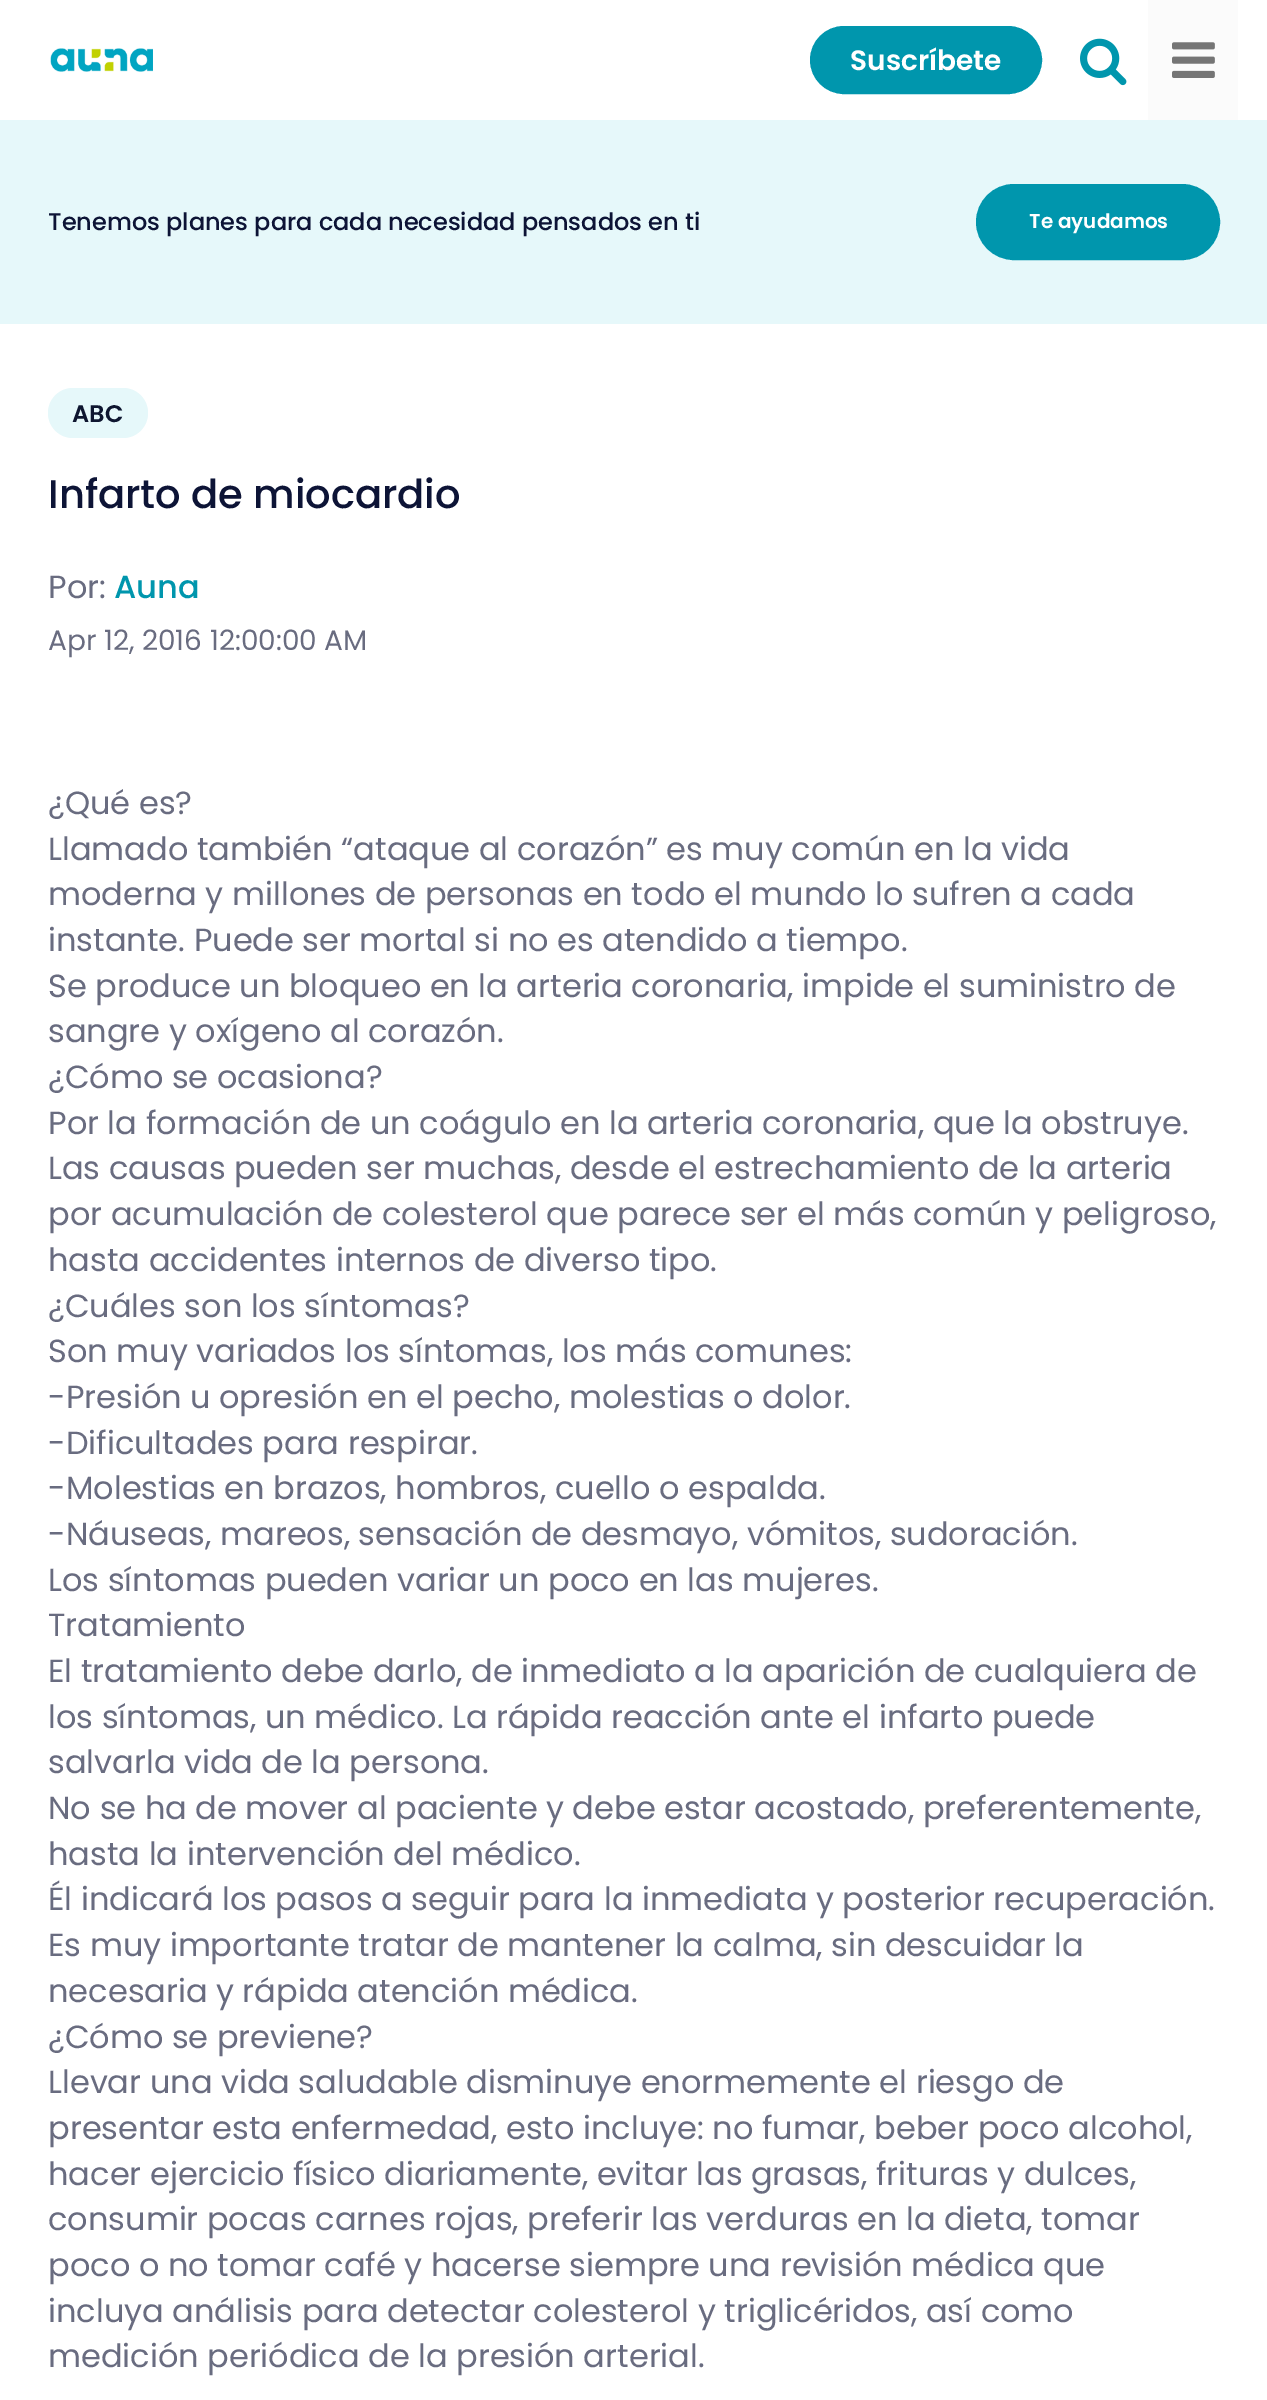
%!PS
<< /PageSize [1267 2400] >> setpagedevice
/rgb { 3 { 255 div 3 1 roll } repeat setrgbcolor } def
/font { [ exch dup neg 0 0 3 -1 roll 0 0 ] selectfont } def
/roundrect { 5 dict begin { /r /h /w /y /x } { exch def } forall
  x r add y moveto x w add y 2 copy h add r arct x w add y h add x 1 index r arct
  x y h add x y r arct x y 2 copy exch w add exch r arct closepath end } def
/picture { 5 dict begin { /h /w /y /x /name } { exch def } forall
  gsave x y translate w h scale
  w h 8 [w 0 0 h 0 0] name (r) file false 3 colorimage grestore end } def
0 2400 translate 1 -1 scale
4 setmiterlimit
255 255 255 rgb
0 0 1267 2400 rectfill
(img/1.rgb) 50 48 103 24 picture
0 150 173 rgb
812 28 228 64 32 roundrect gsave fill grestore
4 setlinewidth
stroke
(img/2.rgb) 1080 38 47 48 picture
251 251 251 rgb
1148 0 90 120 rectfill
(img/3.rgb) 1172 42 43 36 picture
230 248 250 rgb
0 120 1267 204 rectfill
0 150 173 rgb
978 186 240 72 36 roundrect gsave fill grestore
stroke
230 248 250 rgb
48 388 100 50 25 roundrect fill
/Poppins-SemiBold 28 font
255 255 255 rgb
850 70 moveto (Suscríbete) show
/Poppins-Medium 24 font
13 20 54 rgb
48 230 moveto (Tenemos planes para cada necesidad pensados en ti) show
/Poppins-SemiBold 20 font
255 255 255 rgb
1029 228 moveto (Te ayudamos) show
/Poppins-SemiBold 24 font
14 22 48 rgb
72 422 moveto (ABC) show
/Poppins-Medium 40 font
13 20 54 rgb
48 508 moveto (Infarto de miocardio) show
/Poppins-Regular 32 font
105 108 128 rgb
48 598 moveto (Por:) show
/Poppins-Medium 32 font
0 150 173 rgb
114 598 moveto (Auna) show
/Poppins-Regular 28 font
105 108 128 rgb
48 650 moveto (Apr 12, 2016 12:00:00 AM) show
/Poppins-Regular 32 font
[
  [(¿Qué es?) 48 814]
  [(Llamado también “ataque al corazón” es muy común en la vida) 48 860]
  [(moderna y millones de personas en todo el mundo lo sufren a cada) 48 905]
  [(instante. Puede ser mortal si no es atendido a tiempo.) 48 951]
  [(Se produce un bloqueo en la arteria coronaria, impide el suministro de) 48 997]
  [(sangre y oxígeno al corazón.) 48 1042]
  [(¿Cómo se ocasiona?) 48 1088]
  [(Por la formación de un coágulo en la arteria coronaria, que la obstruye.) 48 1134]
  [(Las causas pueden ser muchas, desde el estrechamiento de la arteria) 48 1179]
  [(por acumulación de colesterol que parece ser el más común y peligroso,) 48 1225]
  [(hasta accidentes internos de diverso tipo.) 48 1271]
  [(¿Cuáles son los síntomas?) 48 1317]
  [(Son muy variados los síntomas, los más comunes:) 48 1362]
  [(-Presión u opresión en el pecho, molestias o dolor.) 48 1408]
  [(-Dificultades para respirar.) 48 1454]
  [(-Molestias en brazos, hombros, cuello o espalda.) 48 1499]
  [(-Náuseas, mareos, sensación de desmayo, vómitos, sudoración.) 48 1545]
  [(Los síntomas pueden variar un poco en las mujeres.) 48 1591]
  [(Tratamiento) 48 1636]
  [(El tratamiento debe darlo, de inmediato a la aparición de cualquiera de) 48 1682]
  [(los síntomas, un médico. La rápida reacción ante el infarto puede) 48 1728]
  [(salvarla vida de la persona.) 48 1773]
  [(No se ha de mover al paciente y debe estar acostado, preferentemente,) 48 1819]
  [(hasta la intervención del médico.) 48 1865]
  [(Él indicará los pasos a seguir para la inmediata y posterior recuperación.) 48 1910]
  [(Es muy importante tratar de mantener la calma, sin descuidar la) 48 1956]
  [(necesaria y rápida atención médica.) 48 2002]
  [(¿Cómo se previene?) 48 2048]
  [(Llevar una vida saludable disminuye enormemente el riesgo de) 48 2093]
  [(presentar esta enfermedad, esto incluye: no fumar, beber poco alcohol,) 48 2139]
  [(hacer ejercicio físico diariamente, evitar las grasas, frituras y dulces,) 48 2185]
  [(consumir pocas carnes rojas, preferir las verduras en la dieta, tomar) 48 2230]
  [(poco o no tomar café y hacerse siempre una revisión médica que) 48 2276]
  [(incluya análisis para detectar colesterol y triglicéridos, así como) 48 2322]
  [(medición periódica de la presión arterial.) 48 2367]
] { aload pop moveto show } forall
showpage
